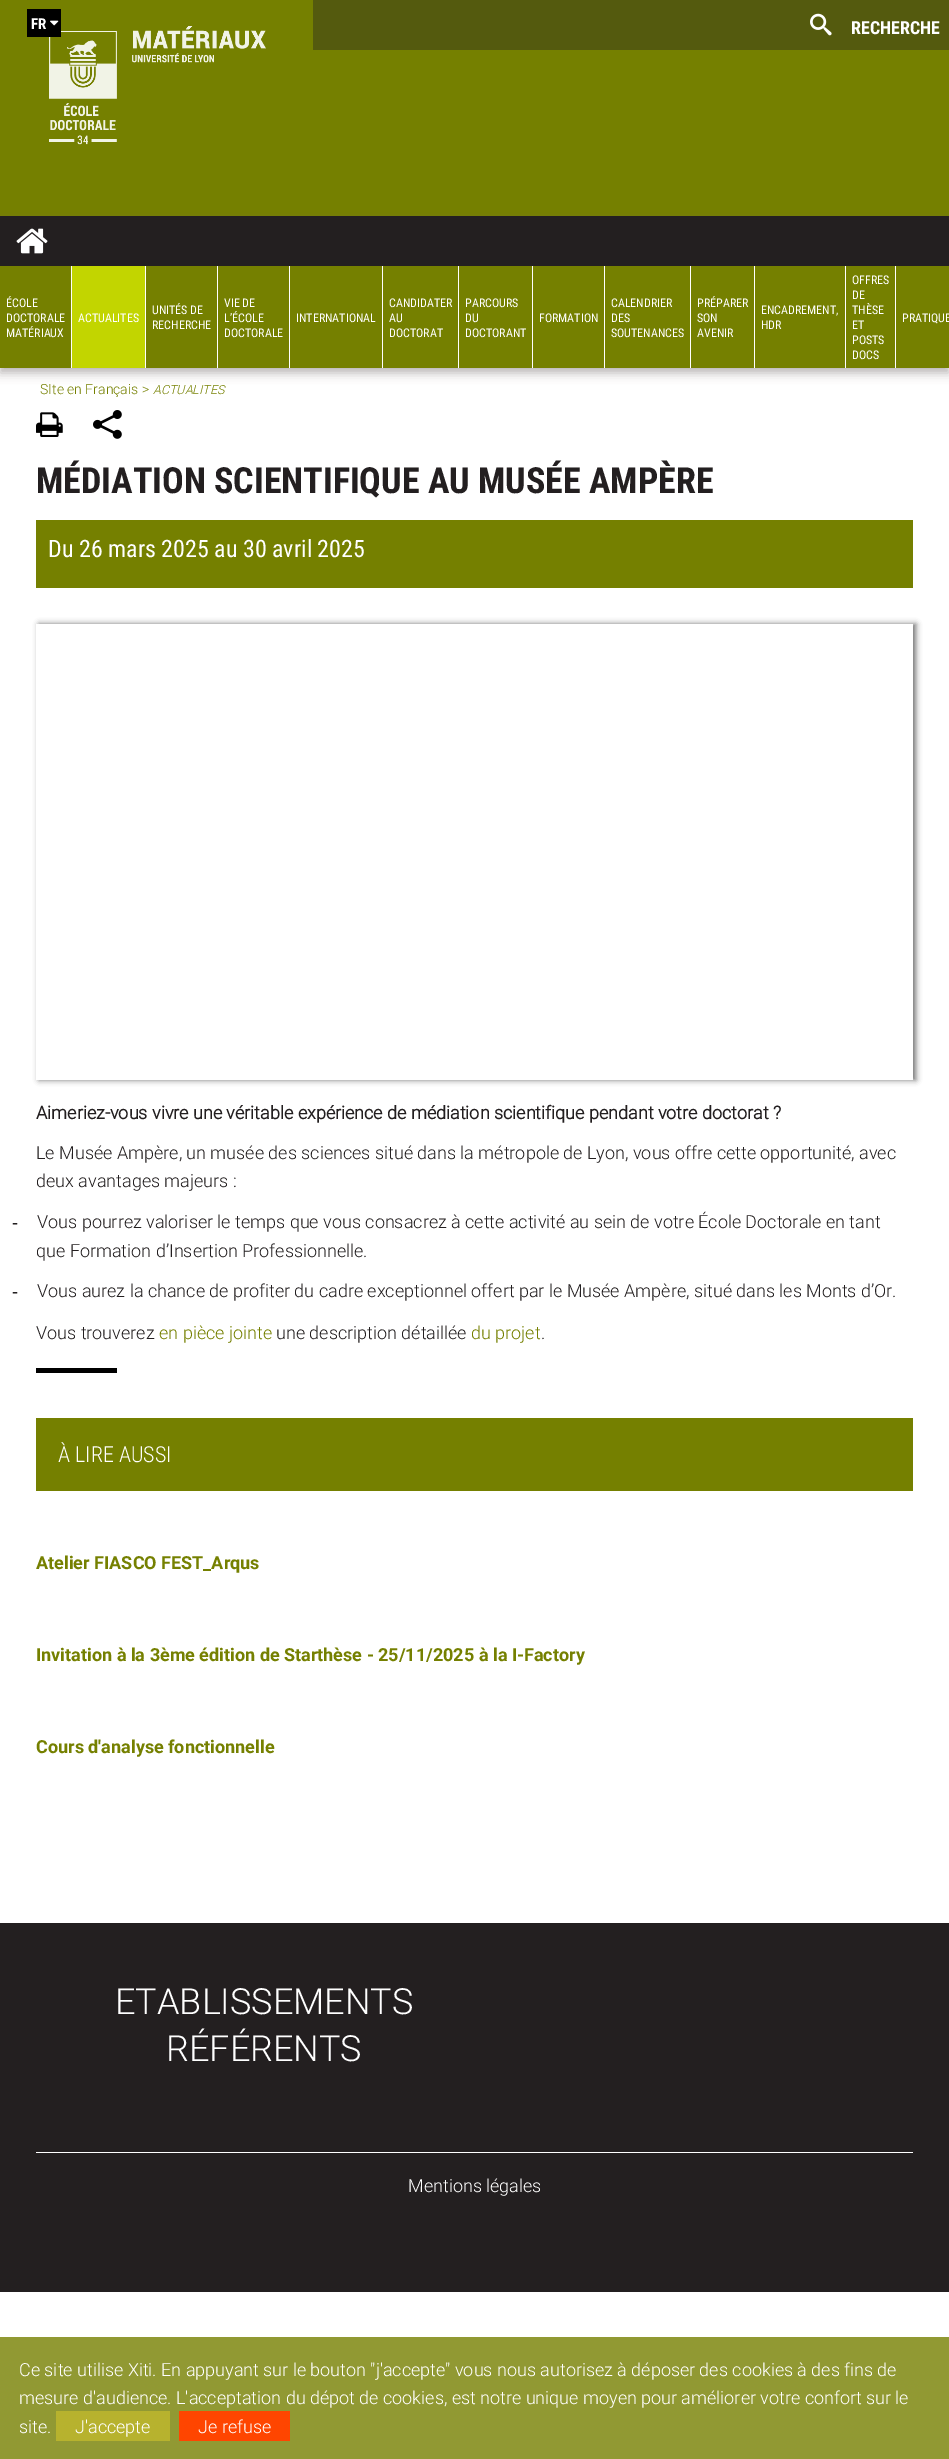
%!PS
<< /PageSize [949 2459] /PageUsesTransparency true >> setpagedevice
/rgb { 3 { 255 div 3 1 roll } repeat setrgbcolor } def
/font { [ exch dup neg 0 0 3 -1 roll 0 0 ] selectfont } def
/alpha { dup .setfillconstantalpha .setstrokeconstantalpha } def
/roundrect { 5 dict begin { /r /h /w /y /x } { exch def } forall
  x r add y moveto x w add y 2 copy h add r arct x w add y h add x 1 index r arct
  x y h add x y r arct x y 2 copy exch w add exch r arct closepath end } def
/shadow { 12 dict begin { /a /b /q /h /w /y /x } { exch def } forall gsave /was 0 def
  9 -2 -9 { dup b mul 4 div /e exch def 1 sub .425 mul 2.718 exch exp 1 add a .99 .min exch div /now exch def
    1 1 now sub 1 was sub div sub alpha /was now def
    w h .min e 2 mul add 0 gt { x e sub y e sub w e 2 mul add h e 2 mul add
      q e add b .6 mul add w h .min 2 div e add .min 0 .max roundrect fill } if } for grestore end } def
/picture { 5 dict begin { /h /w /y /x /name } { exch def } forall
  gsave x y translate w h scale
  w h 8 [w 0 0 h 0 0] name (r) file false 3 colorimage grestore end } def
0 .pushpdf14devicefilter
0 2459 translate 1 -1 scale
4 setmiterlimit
255 255 255 rgb
0 0 949 2459 rectfill
117 128 0 rgb
0 0 949 216 rectfill
(img/1.rgb) 49 26 217 119 picture
84 90 14 rgb
313 0 636 50 rectfill
0 0 0 rgb
27 9 34 28 rectfill
(img/2.rgb) 50 20 9 6 picture
(img/3.rgb) 810 13 22 23 picture
[
  [0 2337 949 122 145 153 51]
  [56 2411 114 30 183 178 46]
  [179 2411 111 30 255 69 0]
] { aload pop rgb rectfill } forall
105 95 95 rgb
0 221 949 152 0 5 0.46 shadow
35 31 32 rgb
0 216 949 50 rectfill
(img/4.rgb) 16 228 32 26 picture
[
  [0 266 949 102 117 128 0]
  [71 266 1 102 255 255 255]
  [72 266 73 102 194 213 0]
  [145 266 1 102 255 255 255]
  [217 266 1 102 255 255 255]
  [289 266 1 102 255 255 255]
  [382 266 1 102 255 255 255]
  [458 266 1 102 255 255 255]
  [532 266 1 102 255 255 255]
  [604 266 1 102 255 255 255]
  [690 266 1 102 255 255 255]
  [754 266 1 102 255 255 255]
  [845 266 1 102 255 255 255]
  [895 266 1 102 255 255 255]
] { aload pop rgb rectfill } forall
(img/5.rgb) 36 412 27 25 picture
(img/6.rgb) 93 410 29 29 picture
117 128 0 rgb
36 520 877 68 rectfill
gsave
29 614 moveto 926 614 lineto 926 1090 lineto 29 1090 lineto closepath 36 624 moveto 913 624 lineto 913 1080 lineto 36 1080 lineto closepath eoclip newpath
0 0 0 rgb
39 624 877 456 0 3 0.54 shadow
grestore
[
  [36 1368 81 5 0 0 0]
  [36 1418 877 73 117 128 0]
  [0 1923 949 369 35 31 32]
  [36 2152 877 1 255 255 255]
] { aload pop rgb rectfill } forall
/RobotoCondensed-Bold 15 font
31 29 moveto (FR) show
/RobotoCondensed-Bold 18 font
851 34 moveto (RECHERCHE) show
/Roboto-Light 18 font
[
  [(Ce site utilise Xiti. En appuyant sur le bouton "j'accepte" vous nous autorisez à déposer des cookies à des fins de) 19 2376]
  [(mesure d'audience. L'acceptation du dépot de cookies, est notre unique moyen pour améliorer votre confort sur le) 19 2404]
  [(site.) 19 2433]
  [(J'accepte) 75 2433]
  [(Je refuse) 198 2433]
] { aload pop moveto show } forall
/RobotoCondensed-Regular 12 font
[
  [(ÉCOLE) 6 307]
  [(DOCTORALE) 6 322]
  [(MATÉRIAUX) 6 337]
  [(ACTUALITES) 78 322]
  [(UNITÉS DE) 152 314]
  [(RECHERCHE) 152 329]
  [(VIE DE) 224 307]
  [(L’ÉCOLE) 224 322]
  [(DOCTORALE) 224 337]
  [(INTERNATIONAL) 296 322]
  [(CANDIDATER) 389 307]
  [(AU) 389 322]
  [(DOCTORAT) 389 337]
  [(PARCOURS) 465 307]
  [(DU) 465 322]
  [(DOCTORANT) 465 337]
  [(FORMATION) 539 322]
  [(CALENDRIER) 611 307]
  [(DES) 611 322]
  [(SOUTENANCES) 611 337]
  [(PRÉPARER) 697 307]
  [(SON) 697 322]
  [(AVENIR) 697 337]
  [(ENCADREMENT,) 761 314]
  [(HDR) 761 329]
  [(OFFRES) 852 284]
  [(DE) 852 299]
  [(THÈSE) 852 314]
  [(ET) 852 329]
  [(POSTS) 852 344]
  [(DOCS) 852 359]
  [(PRATIQUE) 902 322]
] { aload pop moveto show } forall
/Roboto-Light 14 font
117 128 0 rgb
40 394 moveto (SIte en Français >) show
/Roboto-LightItalic 12.5 font
153 394 moveto (ACTUALITES) show
/RobotoCondensed-Bold 36 font
35 31 32 rgb
36 493 moveto (MÉDIATION SCIENTIFIQUE AU MUSÉE AMPÈRE) show
/RobotoCondensed-Regular 24 font
255 255 255 rgb
48 557 moveto (Du 26 mars 2025 au 30 avril 2025) show
/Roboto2-Bold 18 font
35 31 32 rgb
36 1119 moveto (Aimeriez-vous vivre une véritable expérience de médiation scientifique pendant votre doctorat ?) show
/Roboto-Light 18 font
36 1159 moveto (Le Musée Ampère, un musée des sciences situé dans la métropole de Lyon, vous offre cette opportunité, avec) show
36 1187 moveto (deux avantages majeurs :) show
/LiberationSerif-Regular 18 font
12 1228 moveto (-) show
/Roboto-Light 18 font
37 1228 moveto (Vous pourrez valoriser le temps que vous consacrez à cette activité au sein de votre École Doctorale en tant) show
36 1257 moveto (que Formation d’Insertion Professionnelle.) show
/LiberationSerif-Regular 18 font
12 1297 moveto (-) show
/Roboto-Light 18 font
37 1297 moveto (Vous aurez la chance de profiter du cadre exceptionnel offert par le Musée Ampère, situé dans les Monts d’Or.) show
36 1339 moveto (Vous trouverez) show
117 128 0 rgb
159 1339 moveto (en pièce jointe) show
35 31 32 rgb
276 1339 moveto (une description détaillée) show
117 128 0 rgb
471 1339 moveto (du projet) show
35 31 32 rgb
541 1339 moveto (.) show
/RobotoCondensed-Light 22 font
255 255 255 rgb
58 1462 moveto (À LIRE AUSSI) show
/Roboto-Bold 18 font
117 128 0 rgb
[
  [(Atelier FIASCO FEST_Arqus) 36 1569]
  [(Invitation à la 3ème édition de Starthèse - 25/11/2025 à la I-Factory) 36 1661]
  [(Cours d'analyse fonctionnelle) 36 1753]
] { aload pop moveto show } forall
/Roboto-Light 36 font
255 255 255 rgb
115 2014 moveto (ETABLISSEMENTS) show
166 2061 moveto (RÉFÉRENTS) show
/Roboto-Light 18 font
408 2192 moveto (Mentions légales) show
.poppdf14devicefilter showpage
